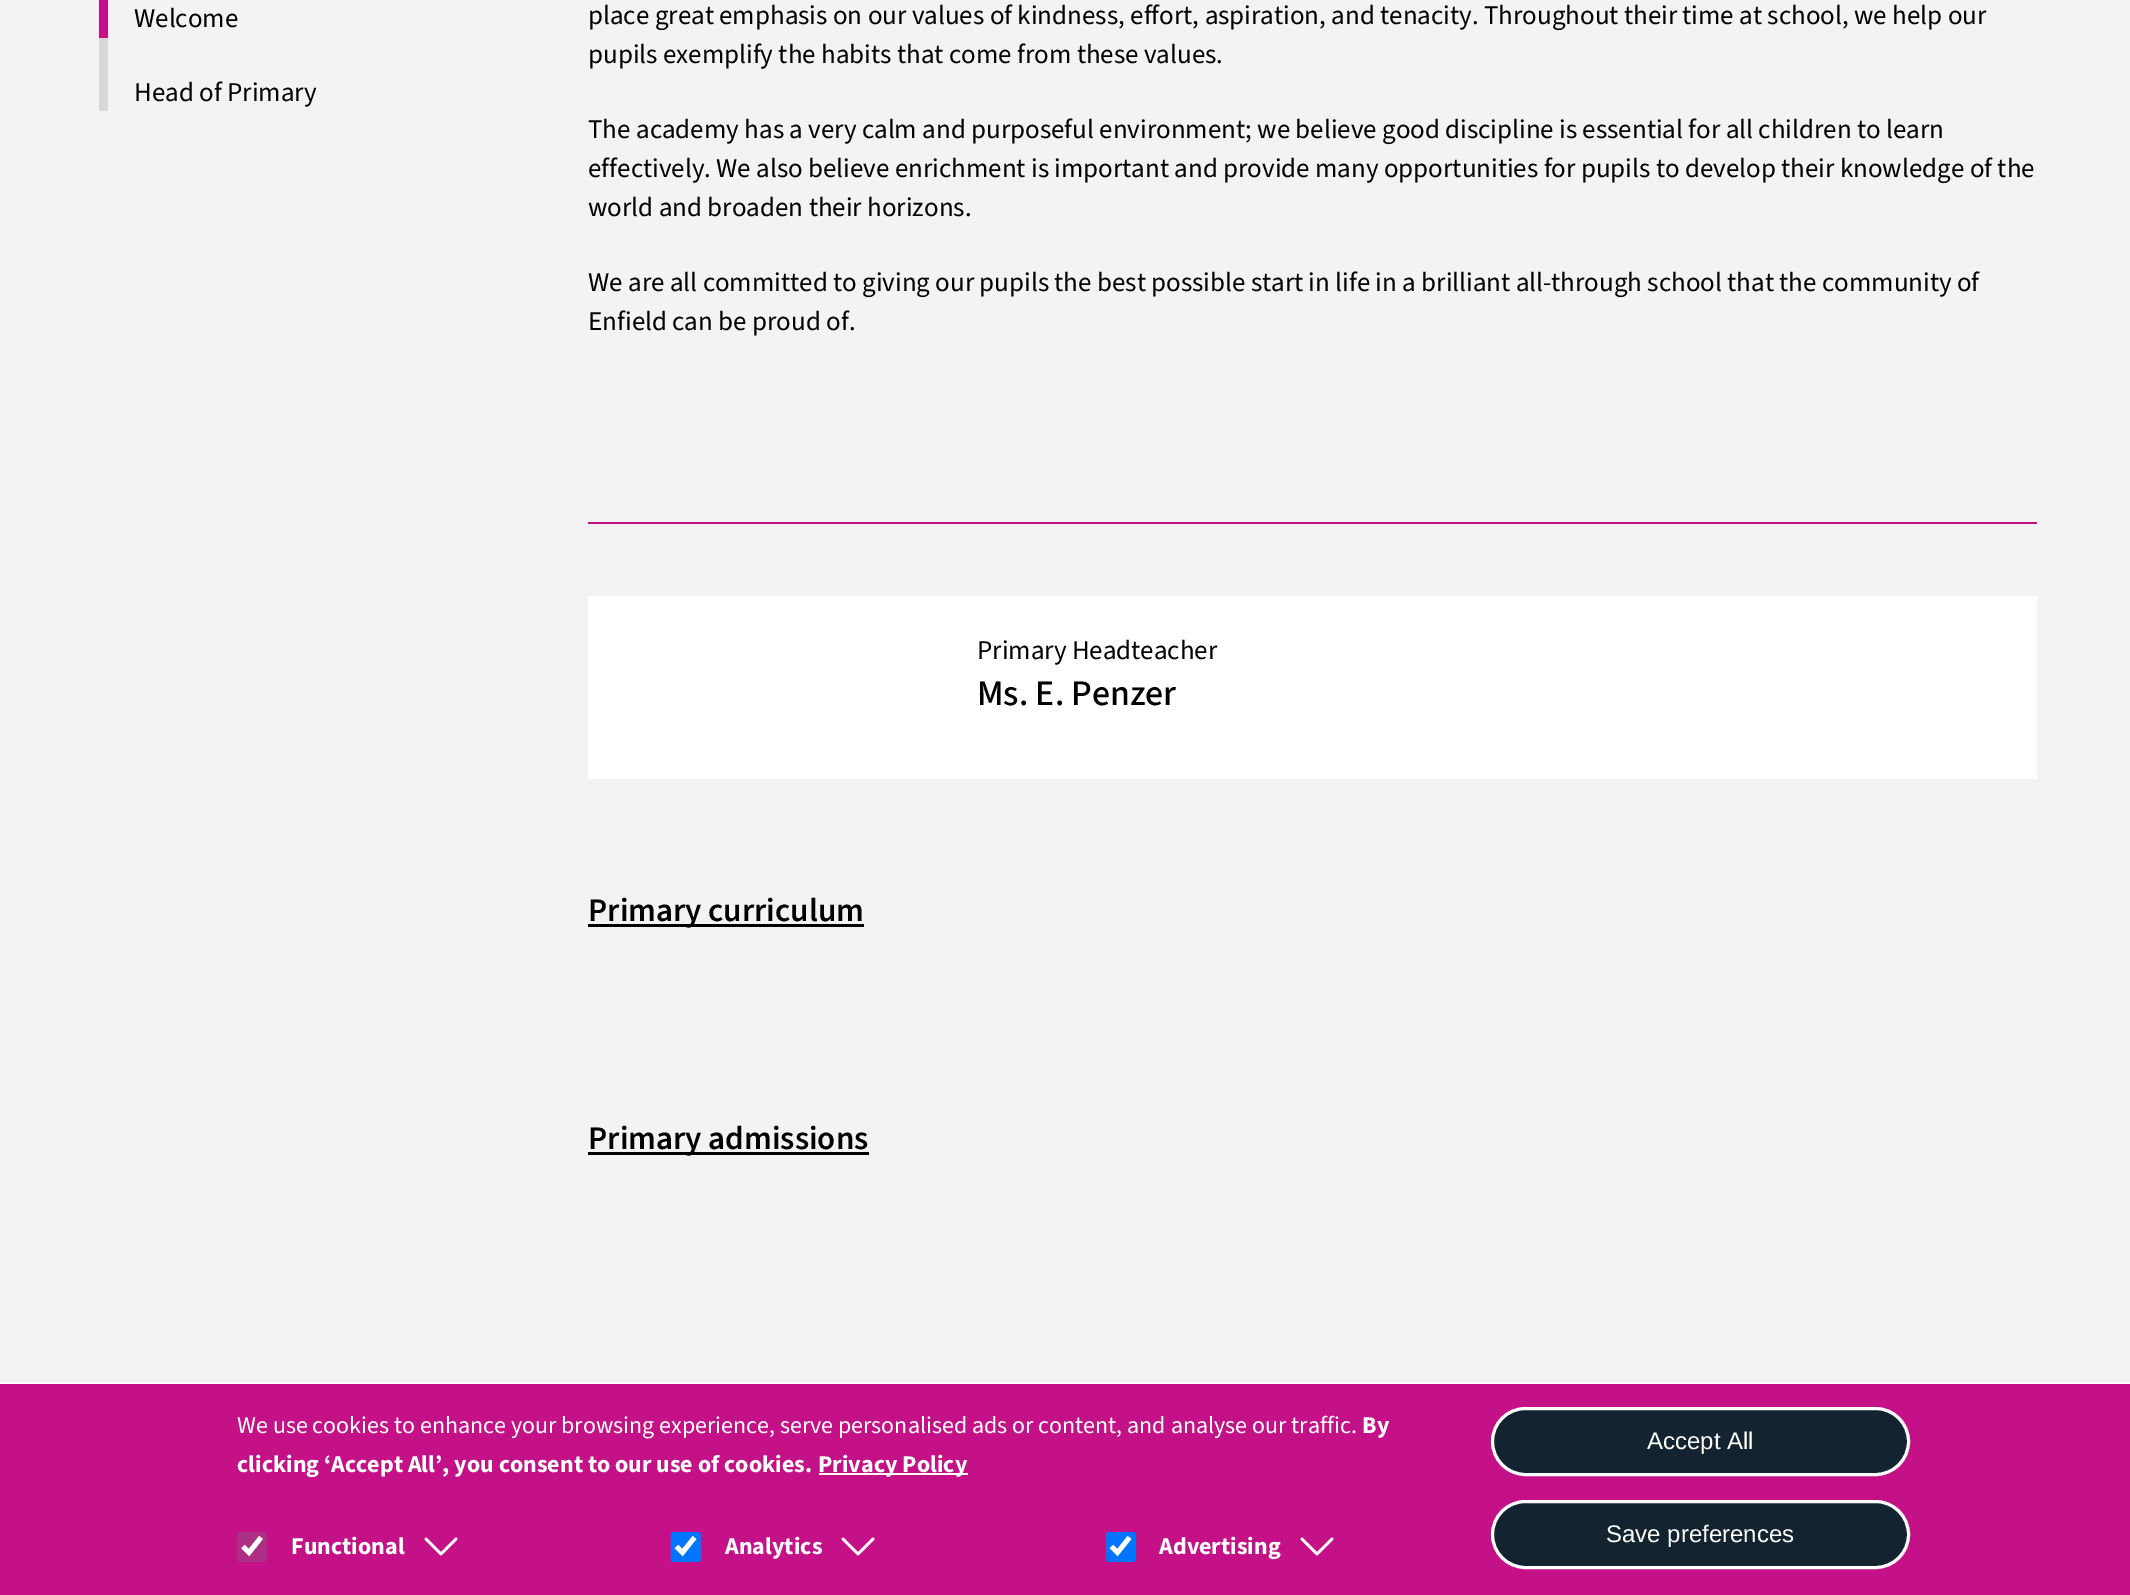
%!PS
<< /PageSize [2130 1595] >> setpagedevice
/rgb { 3 { 255 div 3 1 roll } repeat setrgbcolor } def
/font { [ exch dup neg 0 0 3 -1 roll 0 0 ] selectfont } def
/roundrect { 5 dict begin { /r /h /w /y /x } { exch def } forall
  x r add y moveto x w add y 2 copy h add r arct x w add y h add x 1 index r arct
  x y h add x y r arct x y 2 copy exch w add exch r arct closepath end } def
/picture { 5 dict begin { /h /w /y /x /name } { exch def } forall
  gsave x y translate w h scale
  w h 8 [w 0 0 h 0 0] name (r) file false 3 colorimage grestore end } def
0 1595 translate 1 -1 scale
4 setmiterlimit
243 243 243 rgb
0 0 2130 1595 rectfill
[
  [99 38 9 73 216 216 216]
  [99 0 9 38 196 17 136]
  [588 522 1449 2 196 17 136]
  [588 596 1449 183 255 255 255]
  [588 924 276 3 0 0 0]
  [588 1152 281 3 0 0 0]
  [0 1384 2130 211 196 17 136]
  [0 1382 2130 2 255 255 255]
  [819 1473 149 2 255 255 255]
] { aload pop rgb rectfill } forall
173 47 131 rgb
237 1532 30 30 3 roundrect fill
255 255 255 rgb
4.8 setlinewidth
243 1546.5 moveto 249 1552.5 lineto 261 1537.5 lineto stroke
(img/1.rgb) 424 1537 34 19 picture
0 117 255 rgb
671 1532 30 30 3 roundrect fill
255 255 255 rgb
676.5 1546.5 moveto 682.5 1552.5 lineto 694.5 1537.5 lineto stroke
(img/1.rgb) 841 1537 34 19 picture
0 117 255 rgb
1106 1532 30 30 3 roundrect fill
255 255 255 rgb
1111.5 1546.5 moveto 1117.5 1552.5 lineto 1129.5 1537.5 lineto stroke
(img/1.rgb) 1300 1537 34 19 picture
19 36 48 rgb
1492.5 1408.5 416 66 33 roundrect gsave fill grestore
255 255 255 rgb
3 setlinewidth
stroke
19 36 48 rgb
1492.5 1501.5 416 66 33 roundrect gsave fill grestore
255 255 255 rgb
stroke
/SourceSans3-Regular 27 font
0 0 0 rgb
[
  [(Welcome) 134 27]
  [(Head of Primary) 134 101]
  [(place great emphasis on our values of kindness, effort, aspiration, and tenacity. Throughout their time at school, we help our) 588 24]
  [(pupils exemplify the habits that come from these values.) 588 63]
  [(The academy has a very calm and purposeful environment; we believe good discipline is essential for all children to learn) 588 138]
  [(effectively. We also believe enrichment is important and provide many opportunities for pupils to develop their knowledge of the) 588 177]
  [(world and broaden their horizons.) 588 216]
  [(We are all committed to giving our pupils the best possible start in life in a brilliant all-through school that the community of) 588 291]
  [(Enfield can be proud of.) 588 330]
  [(Primary Headteacher) 977 659]
] { aload pop moveto show } forall
/SourceSans3-Medium 36 font
977 705 moveto (Ms. E. Penzer) show
/SourceSans3-SemiBold 33 font
588 921 moveto (Primary curriculum) show
588 1149 moveto (Primary admissions) show
/SourceSans3-Regular 24 font
255 255 255 rgb
237 1433 moveto (We use cookies to enhance your browsing experience, serve personalised ads or content, and analyse our traffic.) show
/SourceSans3-Bold 24 font
[
  [(By) 1362 1433]
  [(clicking ‘Accept All’, you consent to our use of cookies.) 237 1472]
  [(Privacy Policy) 818 1472]
  [(Functional) 291 1554]
  [(Analytics) 725 1554]
  [(Advertising) 1159 1554]
] { aload pop moveto show } forall
/LiberationSans-Regular 24 font
1647 1449 moveto (Accept All) show
1606 1542 moveto (Save preferences) show
showpage
